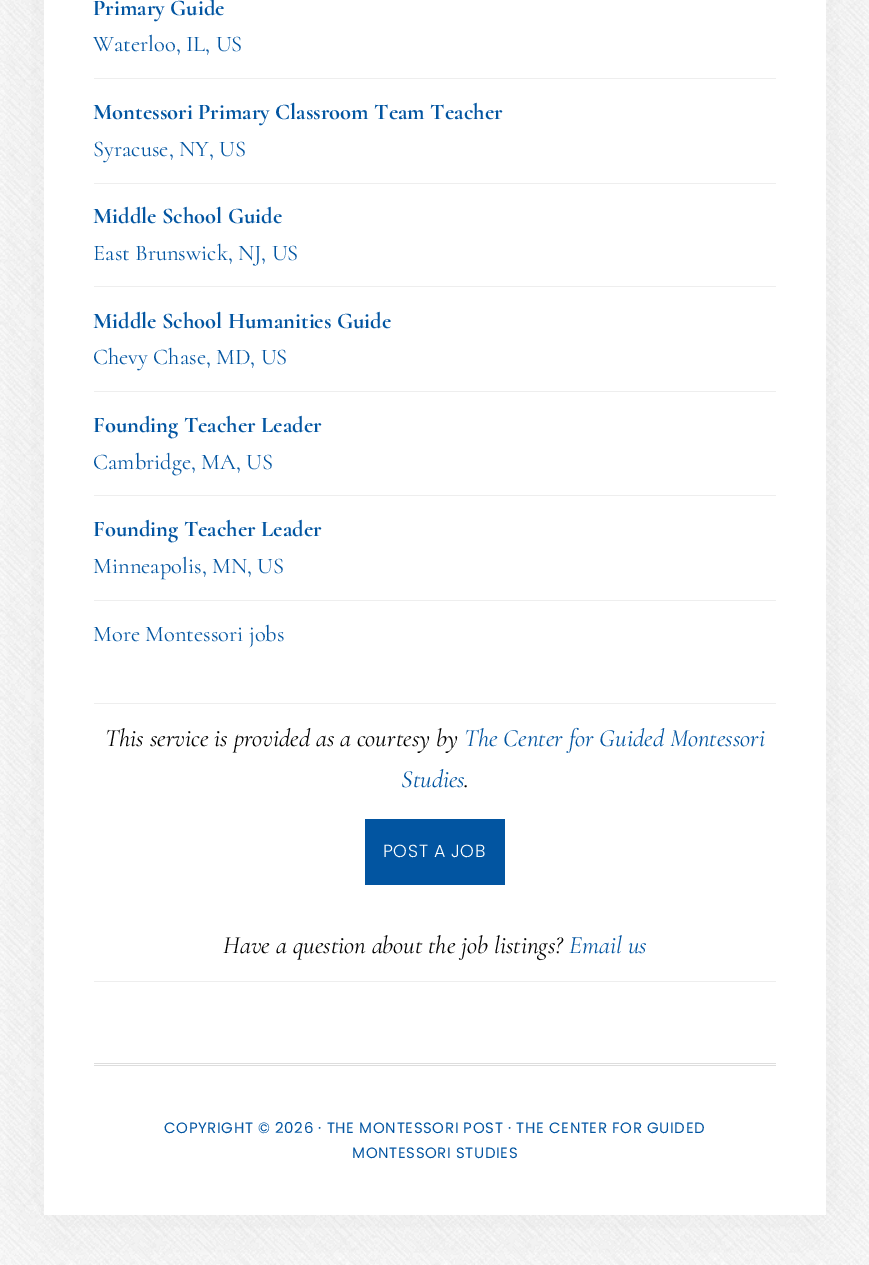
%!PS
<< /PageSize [869 1265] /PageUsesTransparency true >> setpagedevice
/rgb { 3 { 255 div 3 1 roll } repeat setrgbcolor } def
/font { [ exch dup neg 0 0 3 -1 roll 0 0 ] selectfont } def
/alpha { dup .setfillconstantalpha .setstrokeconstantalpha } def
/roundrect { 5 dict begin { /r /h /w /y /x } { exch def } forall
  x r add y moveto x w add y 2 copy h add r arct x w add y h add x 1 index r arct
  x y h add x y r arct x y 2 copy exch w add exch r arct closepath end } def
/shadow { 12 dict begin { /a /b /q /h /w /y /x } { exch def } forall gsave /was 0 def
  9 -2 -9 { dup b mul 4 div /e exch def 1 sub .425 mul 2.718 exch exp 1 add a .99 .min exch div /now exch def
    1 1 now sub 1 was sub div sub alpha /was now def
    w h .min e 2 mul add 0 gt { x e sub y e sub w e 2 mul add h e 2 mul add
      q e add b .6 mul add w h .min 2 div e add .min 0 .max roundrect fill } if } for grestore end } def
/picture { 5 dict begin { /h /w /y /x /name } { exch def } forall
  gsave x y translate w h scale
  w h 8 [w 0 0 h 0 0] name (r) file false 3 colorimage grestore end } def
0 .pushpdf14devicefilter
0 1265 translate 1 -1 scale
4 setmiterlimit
255 255 255 rgb
0 0 869 1265 rectfill
(img/1.rgb) 0 0 869 1265 picture
0 0 0 rgb
44 -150 782 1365 0 50 0.05 shadow
[
  [44 0 782 1215 255 255 255]
  [94 78 682 1 238 238 238]
  [94 183 682 1 238 238 238]
  [94 286 682 1 238 238 238]
  [94 391 682 1 238 238 238]
  [94 495 682 1 238 238 238]
  [94 600 682 1 238 238 238]
  [94 703 682 1 238 238 238]
  [94 981 682 1 238 238 238]
  [365 819 140 66 2 85 161]
  [94 1063 682 1 221 221 221]
  [94 1065 682 1 221 221 221]
] { aload pop rgb rectfill } forall
/Cormorant-Bold 22.5 font
2 85 161 rgb
93 15 moveto (Primary Guide) show
/Cormorant-Regular 22.5 font
93 51 moveto (Waterloo, IL, US) show
/Cormorant-Bold 22.5 font
93 119 moveto (Montessori Primary Classroom Team Teacher) show
/Cormorant-Regular 22.5 font
93 156 moveto (Syracuse, NY, US) show
/Cormorant-Bold 22.5 font
93 223 moveto (Middle School Guide) show
/Cormorant-Regular 22.5 font
93 260 moveto (East Brunswick, NJ, US) show
/Cormorant-Bold 22.5 font
93 328 moveto (Middle School Humanities Guide) show
/Cormorant-Regular 22.5 font
93 364 moveto (Chevy Chase, MD, US) show
/Cormorant-Bold 22.5 font
93 432 moveto (Founding Teacher Leader) show
/Cormorant-Regular 22.5 font
93 469 moveto (Cambridge, MA, US) show
/Cormorant-Bold 22.5 font
93 536 moveto (Founding Teacher Leader) show
/Cormorant-Regular 22.5 font
93 573 moveto (Minneapolis, MN, US) show
93 641 moveto (More Montessori jobs) show
/Cormorant-Italic 25 font
0 0 0 rgb
105 746 moveto (This service is provided as a courtesy by) show
2 85 161 rgb
464 746 moveto (The Center for Guided Montessori) show
401 787 moveto (Studies) show
0 0 0 rgb
464 787 moveto (.) show
/Poppins-Light 17.5 font
255 255 255 rgb
383 857 moveto 0.62 0 (POST A JOB) ashow
/Cormorant-Italic 25 font
0 0 0 rgb
223 953 moveto (Have a question about the job listings?) show
2 85 161 rgb
569 953 moveto (Email us) show
/Poppins-Regular 15 font
164 1133 moveto 0.62 0 (COPYRIGHT © 2026 · THE MONTESSORI POST · THE CENTER FOR GUIDED) ashow
352 1158 moveto 0.62 0 (MONTESSORI STUDIES) ashow
.poppdf14devicefilter showpage
